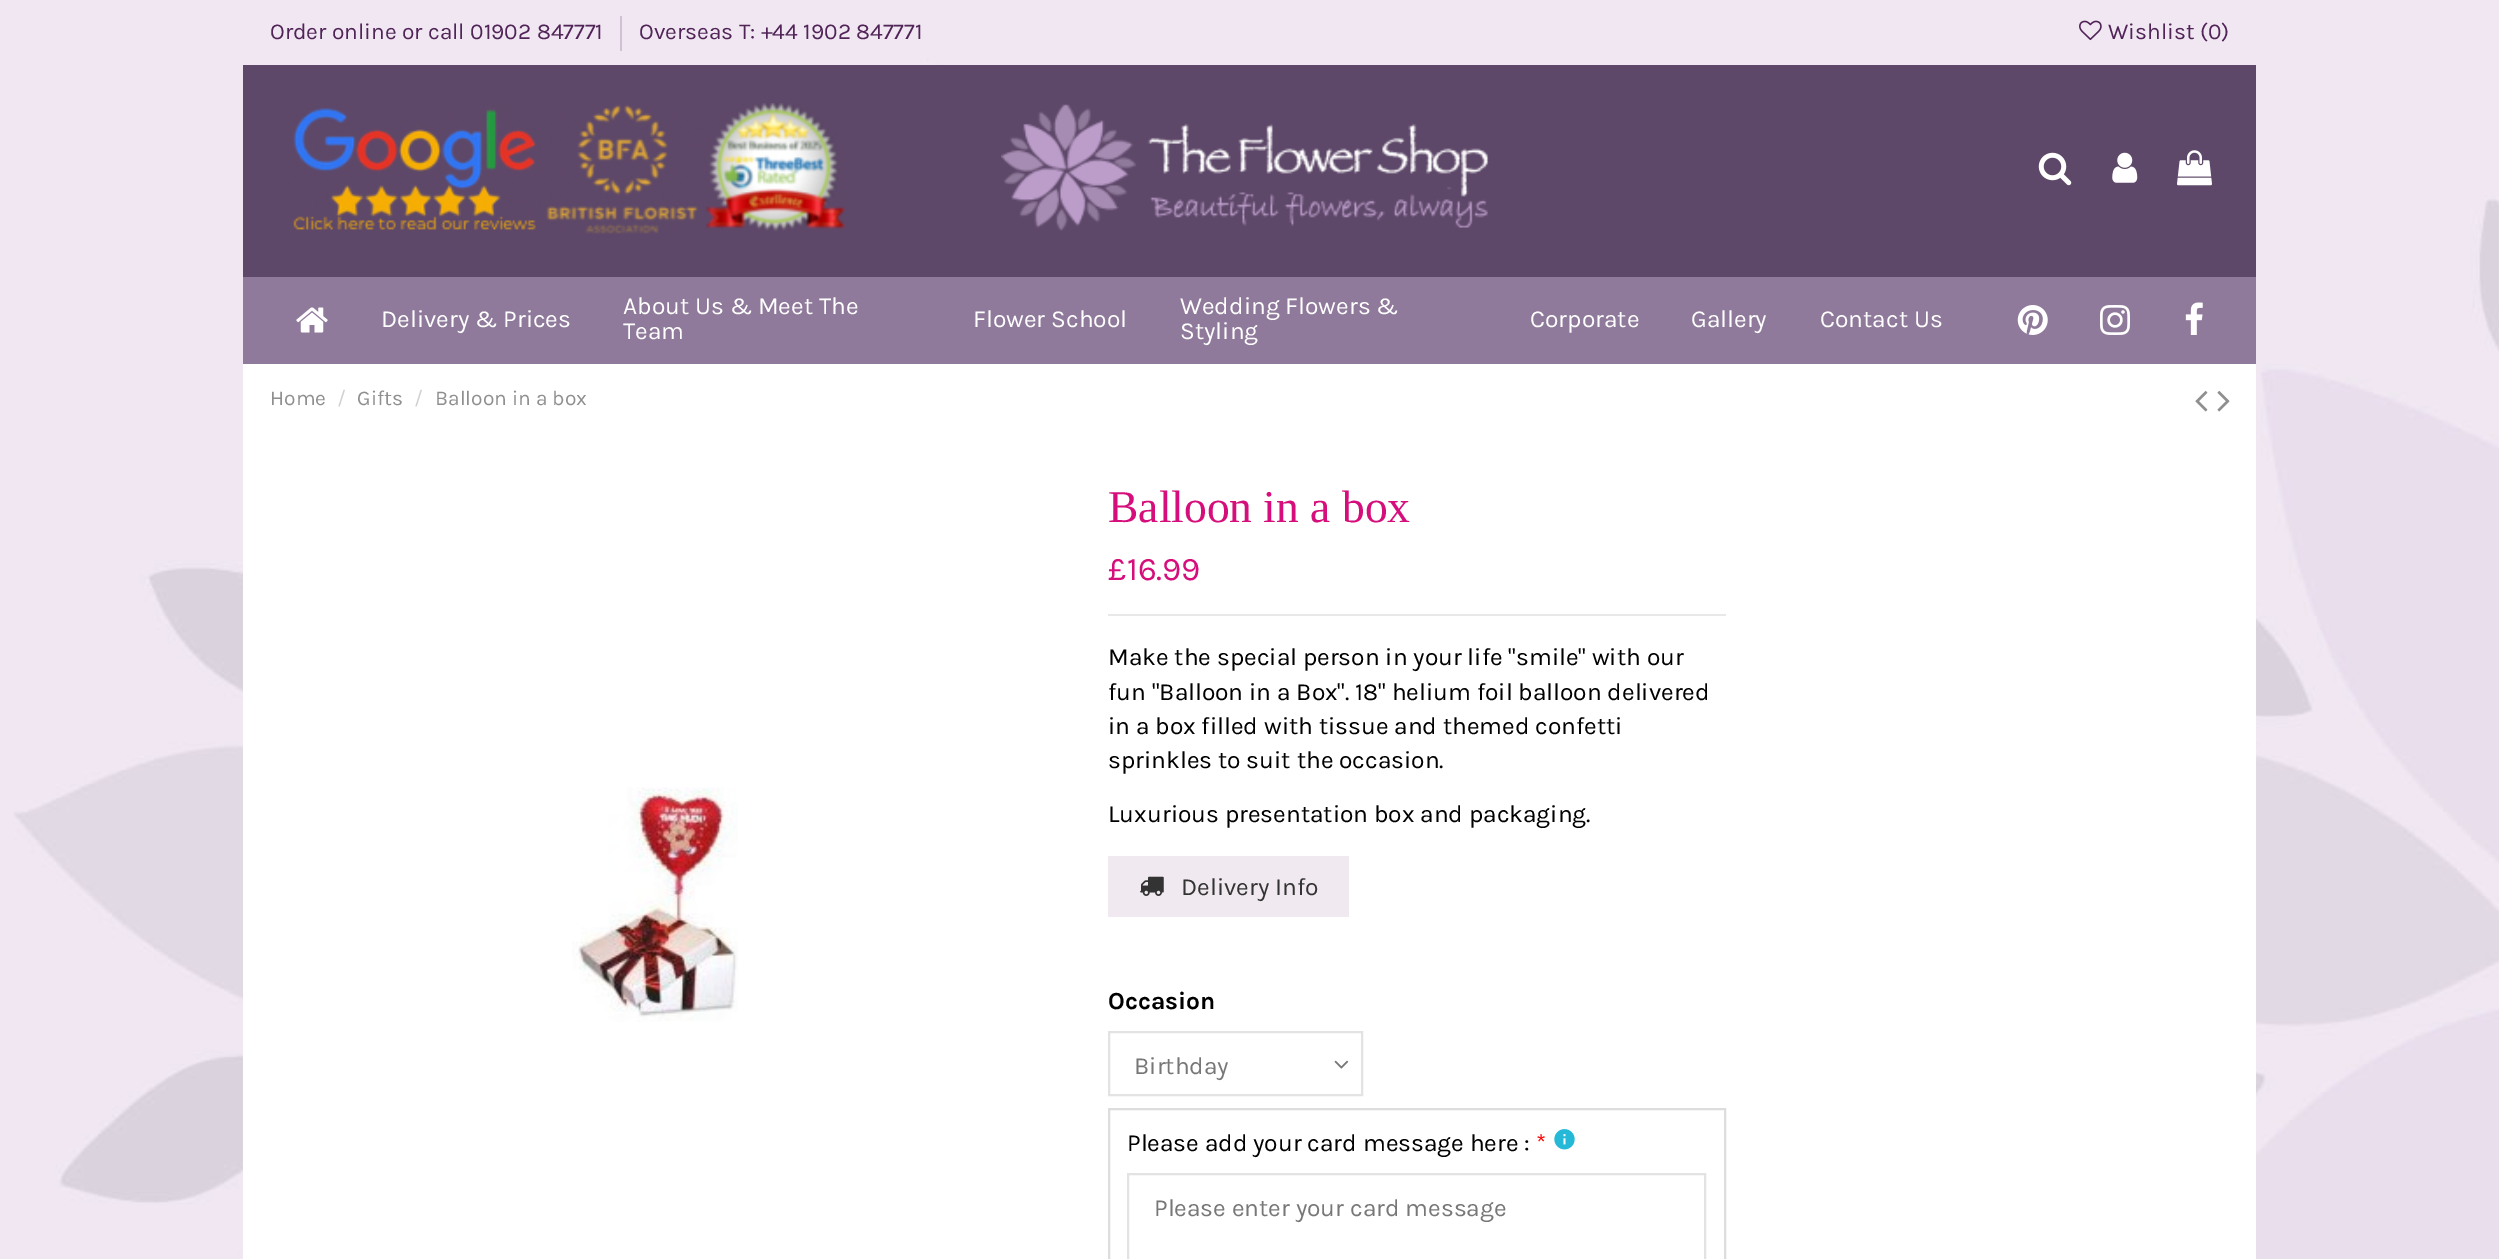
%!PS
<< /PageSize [2499 1259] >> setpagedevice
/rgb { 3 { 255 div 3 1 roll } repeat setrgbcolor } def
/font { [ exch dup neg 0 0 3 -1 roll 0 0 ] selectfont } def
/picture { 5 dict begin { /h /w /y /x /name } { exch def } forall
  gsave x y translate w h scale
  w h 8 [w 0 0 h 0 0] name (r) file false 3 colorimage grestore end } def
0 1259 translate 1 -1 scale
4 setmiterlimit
255 255 255 rgb
0 0 2499 1259 rectfill
(img/1.rgb) 0 0 2499 1259 picture
[
  [243 65 2013 212 94 72 105]
  [929 57 8 8 241 231 242]
  [620 16 2 35 209 192 211]
] { aload pop rgb rectfill } forall
(img/2.rgb) 2079 20 23 21 picture
(img/3.rgb) 293 103 553 131 picture
(img/4.rgb) 1001 104 488 127 picture
(img/5.rgb) 2038 152 34 34 picture
(img/6.rgb) 2112 152 26 31 picture
(img/7.rgb) 2177 150 35 36 picture
144 122 155 rgb
243 277 2013 87 rectfill
(img/8.rgb) 296 307 32 26 picture
(img/9.rgb) 2017 305 31 30 picture
(img/10.rgb) 2100 305 30 30 picture
(img/11.rgb) 2185 302 18 33 picture
255 255 255 rgb
243 364 2013 895 rectfill
(img/12.rgb) 2195 391 13 21 picture
(img/13.rgb) 2217 391 13 21 picture
(img/14.rgb) 572 787 166 235 picture
232 232 232 rgb
1108 614 618 2 rectfill
240 233 239 rgb
1108 856 241 61 rectfill
(img/15.rgb) 1140 876 24 20 picture
(img/16.rgb) 1334 1060 15 9 picture
227 227 227 rgb
2 setlinewidth
1109 1032 253 63 rectstroke
221 221 221 rgb
1109 1109 616 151 rectstroke
(img/17.rgb) 1554 1129 21 21 picture
227 227 227 rgb
1128 1174 577 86 rectstroke
/Karla-Regular 22.75 font
80 36 87 rgb
[
  [(Order online or call 01902 847771) 270 39]
  [(Overseas T: +44 1902 847771) 639 39]
  [(Wishlist \(0\)) 2108 39]
] { aload pop moveto show } forall
/Karla-Regular 24.5 font
255 255 255 rgb
[
  [(Delivery & Prices) 381 327]
  [(About Us & Meet The) 623 314]
  [(Team) 623 339]
  [(Flower School) 973 327]
  [(Wedding Flowers &) 1180 314]
  [(Styling) 1180 339]
  [(Corporate) 1530 327]
  [(Gallery) 1691 327]
  [(Contact Us) 1820 327]
] { aload pop moveto show } forall
/Karla-Regular 21 font
143 143 143 rgb
270 405 moveto (Home) show
210 210 210 rgb
337 405 moveto (/) show
143 143 143 rgb
357 405 moveto (Gifts) show
210 210 210 rgb
414 405 moveto (/) show
143 143 143 rgb
435 405 moveto (Balloon in a box) show
/LiberationSerif-Regular 45.5 font
213 14 123 rgb
1108 522 moveto (Balloon in a box) show
/Karla-Regular 33 font
1108 580 moveto (£16.99) show
/Karla-Regular 24.5 font
0 0 0 rgb
[
  [(Make the special person in your life "smile" with our) 1108 665]
  [(fun "Balloon in a Box". 18" helium foil balloon delivered) 1108 700]
  [(in a box filled with tissue and themed confetti) 1108 734]
  [(sprinkles to suit the occasion.) 1108 768]
  [(Luxurious presentation box and packaging.) 1108 822]
] { aload pop moveto show } forall
51 51 51 rgb
1181 895 moveto (Delivery Info) show
/Karla-Bold 24.5 font
0 0 0 rgb
1108 1009 moveto (Occasion) show
/Karla-Regular 24.5 font
119 119 119 rgb
1134 1074 moveto (Birthday) show
0 0 0 rgb
1127 1151 moveto (Please add your card message here :) show
255 0 0 rgb
1536 1151 moveto (*) show
119 119 119 rgb
1154 1216 moveto (Please enter your card message) show
showpage
